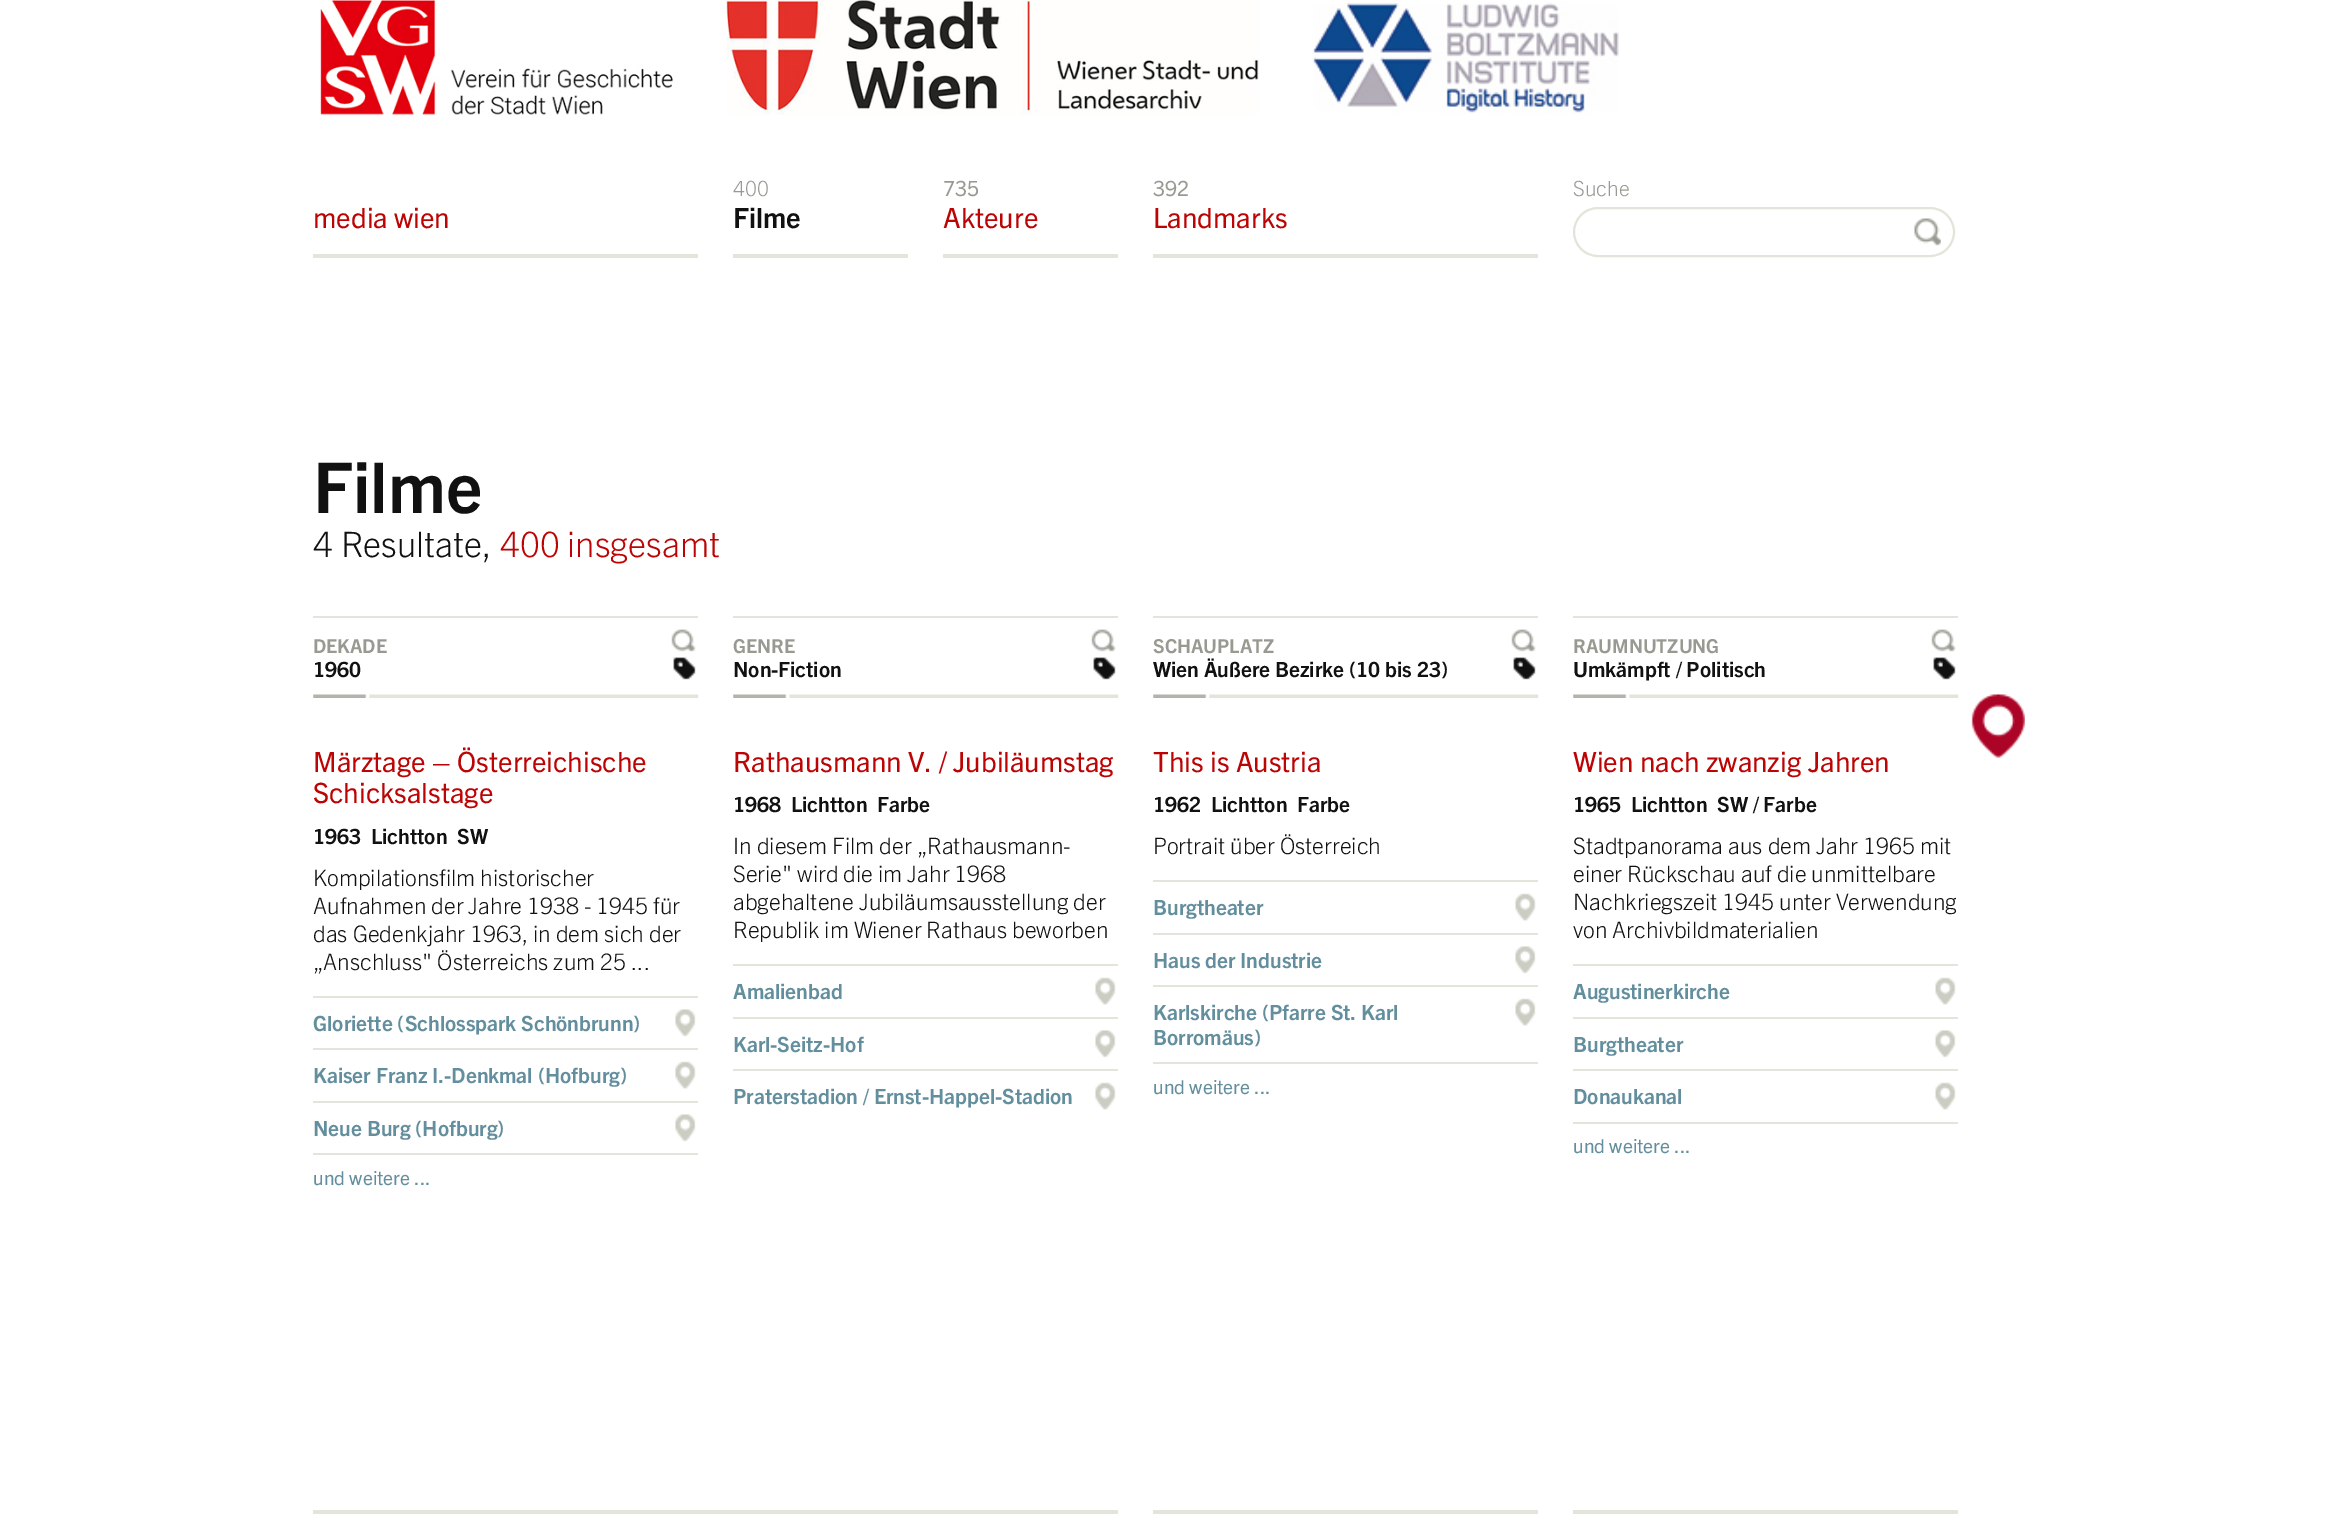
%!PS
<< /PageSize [2341 1523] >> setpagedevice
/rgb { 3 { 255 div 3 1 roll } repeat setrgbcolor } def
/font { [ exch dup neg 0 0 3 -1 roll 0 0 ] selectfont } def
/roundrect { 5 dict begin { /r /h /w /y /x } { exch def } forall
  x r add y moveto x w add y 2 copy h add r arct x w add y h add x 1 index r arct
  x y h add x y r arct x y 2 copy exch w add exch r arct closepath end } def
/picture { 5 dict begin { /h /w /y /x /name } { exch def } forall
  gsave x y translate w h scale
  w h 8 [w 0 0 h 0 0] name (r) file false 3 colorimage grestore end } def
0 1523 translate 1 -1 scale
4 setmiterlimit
255 255 255 rgb
0 0 2341 1523 rectfill
(img/1.rgb) 320 0 353 115 picture
(img/2.rgb) 726 0 533 115 picture
(img/3.rgb) 1312 2 307 113 picture
[
  [733 254 175 4 228 229 218]
  [943 254 175 4 228 229 218]
  [1153 254 385 4 228 229 218]
] { aload pop rgb rectfill } forall
2 setlinewidth
1574 208 380 48 24 roundrect stroke
(img/4.rgb) 1914 218 27 28 picture
313 254 385 4 rectfill
313 616 385 2 rectfill
(img/5.rgb) 671 629 25 23 picture
(img/6.rgb) 673 657 23 23 picture
733 616 385 2 rectfill
(img/5.rgb) 1091 629 25 23 picture
(img/6.rgb) 1093 657 23 23 picture
1153 616 385 2 rectfill
(img/7.rgb) 1511 629 25 23 picture
(img/8.rgb) 1513 657 23 23 picture
1573 616 385 2 rectfill
(img/9.rgb) 1931 629 25 23 picture
(img/10.rgb) 1933 657 23 23 picture
(img/11.rgb) 1971 694 54 64 picture
(img/12.rgb) 313 694 386 4 picture
313 996 385 2 rectfill
(img/13.rgb) 675 1009 21 28 picture
313 1048 385 2 rectfill
(img/14.rgb) 675 1061 21 28 picture
313 1101 385 2 rectfill
(img/13.rgb) 675 1114 21 28 picture
313 1153 385 2 rectfill
(img/12.rgb) 733 694 386 4 picture
733 964 385 2 rectfill
(img/14.rgb) 1095 977 21 28 picture
733 1017 385 2 rectfill
(img/13.rgb) 1095 1030 21 28 picture
733 1069 385 2 rectfill
(img/14.rgb) 1095 1082 21 28 picture
(img/12.rgb) 1153 694 386 4 picture
1153 880 385 2 rectfill
(img/15.rgb) 1515 893 21 28 picture
1153 933 385 2 rectfill
(img/16.rgb) 1515 946 21 28 picture
1153 985 385 2 rectfill
(img/15.rgb) 1515 998 21 28 picture
1153 1062 385 2 rectfill
(img/12.rgb) 1573 694 386 4 picture
1573 964 385 2 rectfill
(img/17.rgb) 1935 977 21 28 picture
1573 1017 385 2 rectfill
(img/18.rgb) 1935 1030 21 28 picture
1573 1069 385 2 rectfill
(img/17.rgb) 1935 1082 21 28 picture
[
  [1573 1122 385 2 228 229 218]
  [313 1510 805 4 228 229 218]
  [1153 1510 385 4 228 229 218]
  [1573 1510 385 4 228 229 218]
] { aload pop rgb rectfill } forall
/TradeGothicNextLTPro-Light 21 font
152 153 145 rgb
733 196 moveto (400) show
/TradeGothicNextLTPro-Bold 28 font
17 17 17 rgb
733 228 moveto (Filme) show
/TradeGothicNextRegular-Regular 21 font
152 153 145 rgb
943 196 moveto (735) show
/TradeGothicNextRegular-Regular 28 font
188 4 4 rgb
943 228 moveto (Akteure) show
/TradeGothicNextRegular-Regular 21 font
152 153 145 rgb
1153 196 moveto (392) show
/TradeGothicNextRegular-Regular 28 font
188 4 4 rgb
1153 228 moveto (Landmarks) show
/TradeGothicNextLTPro-Light 21 font
152 153 145 rgb
1573 196 moveto (Suche) show
/TradeGothicNextRegular-Regular 28 font
188 4 4 rgb
313 228 moveto (media wien) show
/TradeGothicNextLTPro-Bold 70 font
17 17 17 rgb
313 513 moveto (Filme) show
/TradeGothicNextLTPro-Light 35 font
313 557 moveto (4 Resultate,) show
188 4 4 rgb
500 557 moveto (400 insgesamt) show
/TradeGothicNextLTPro-Bold 19.25 font
152 153 145 rgb
313 653 moveto (DEKADE) show
/TradeGothicNextLTPro-Bold 21 font
17 17 17 rgb
313 677 moveto (1960) show
/TradeGothicNextLTPro-Bold 19.25 font
152 153 145 rgb
733 653 moveto (GENRE) show
/TradeGothicNextLTPro-Bold 21 font
17 17 17 rgb
733 677 moveto (Non-Fiction) show
/TradeGothicNextLTPro-Bold 19.25 font
152 153 145 rgb
1153 653 moveto (SCHAUPLATZ) show
/TradeGothicNextLTPro-Bold 21 font
17 17 17 rgb
1153 677 moveto (Wien Äußere Bezirke \(10 bis 23\)) show
/TradeGothicNextLTPro-Bold 19.25 font
152 153 145 rgb
1573 653 moveto (RAUMNUTZUNG) show
/TradeGothicNextLTPro-Bold 21 font
17 17 17 rgb
1573 677 moveto (Umkämpft / Politisch) show
/TradeGothicNextRegular-Regular 28 font
188 4 4 rgb
313 772 moveto (Märztage – Österreichische) show
313 803 moveto (Schicksalstage) show
/TradeGothicNextLTPro-Bold 21 font
17 17 17 rgb
[
  [(1963) 313 844]
  [(Lichtton) 371 844]
  [(SW) 457 844]
] { aload pop moveto show } forall
/TradeGothicNextLTPro-Light 22.75 font
[
  [(Kompilationsfilm historischer) 313 886]
  [(Aufnahmen der Jahre 1938 - 1945 für) 313 914]
  [(das Gedenkjahr 1963, in dem sich der) 313 942]
  [(„Anschluss" Österreichs zum 25 ...) 313 970]
] { aload pop moveto show } forall
/TradeGothicNextLTPro-Bold 21 font
98 142 158 rgb
[
  [(Gloriette \(Schlosspark Schönbrunn\)) 313 1031]
  [(Kaiser Franz I.-Denkmal \(Hofburg\)) 313 1083]
  [(Neue Burg \(Hofburg\)) 313 1136]
] { aload pop moveto show } forall
/TradeGothicNextRegular-Regular 19.25 font
313 1185 moveto (und weitere ...) show
/TradeGothicNextRegular-Regular 28 font
188 4 4 rgb
733 772 moveto (Rathausmann V. / Jubiläumstag) show
/TradeGothicNextLTPro-Bold 21 font
17 17 17 rgb
[
  [(1968) 733 812]
  [(Lichtton) 791 812]
  [(Farbe) 877 812]
] { aload pop moveto show } forall
/TradeGothicNextLTPro-Light 22.75 font
[
  [(In diesem Film der „Rathausmann-) 733 854]
  [(Serie" wird die im Jahr 1968) 733 882]
  [(abgehaltene Jubiläumsausstellung der) 733 910]
  [(Republik im Wiener Rathaus beworben) 733 938]
] { aload pop moveto show } forall
/TradeGothicNextLTPro-Bold 21 font
98 142 158 rgb
[
  [(Amalienbad) 733 999]
  [(Karl-Seitz-Hof) 733 1052]
  [(Praterstadion / Ernst-Happel-Stadion) 733 1104]
] { aload pop moveto show } forall
/TradeGothicNextRegular-Regular 28 font
188 4 4 rgb
1153 772 moveto (This is Austria) show
/TradeGothicNextLTPro-Bold 21 font
17 17 17 rgb
[
  [(1962) 1153 812]
  [(Lichtton) 1211 812]
  [(Farbe) 1297 812]
] { aload pop moveto show } forall
/TradeGothicNextLTPro-Light 22.75 font
1153 854 moveto (Portrait über Österreich) show
/TradeGothicNextLTPro-Bold 21 font
98 142 158 rgb
[
  [(Burgtheater) 1153 915]
  [(Haus der Industrie) 1153 968]
  [(Karlskirche \(Pfarre St. Karl) 1153 1020]
  [(Borromäus\)) 1153 1045]
] { aload pop moveto show } forall
/TradeGothicNextRegular-Regular 19.25 font
1153 1094 moveto (und weitere ...) show
/TradeGothicNextRegular-Regular 28 font
188 4 4 rgb
1573 772 moveto (Wien nach zwanzig Jahren) show
/TradeGothicNextLTPro-Bold 21 font
17 17 17 rgb
[
  [(1965) 1573 812]
  [(Lichtton) 1631 812]
  [(SW / Farbe) 1717 812]
] { aload pop moveto show } forall
/TradeGothicNextLTPro-Light 22.75 font
[
  [(Stadtpanorama aus dem Jahr 1965 mit) 1573 854]
  [(einer Rückschau auf die unmittelbare) 1573 882]
  [(Nachkriegszeit 1945 unter Verwendung) 1573 910]
  [(von Archivbildmaterialien) 1573 938]
] { aload pop moveto show } forall
/TradeGothicNextLTPro-Bold 21 font
98 142 158 rgb
[
  [(Augustinerkirche) 1573 999]
  [(Burgtheater) 1573 1052]
  [(Donaukanal) 1573 1104]
] { aload pop moveto show } forall
/TradeGothicNextRegular-Regular 19.25 font
1573 1153 moveto (und weitere ...) show
showpage
